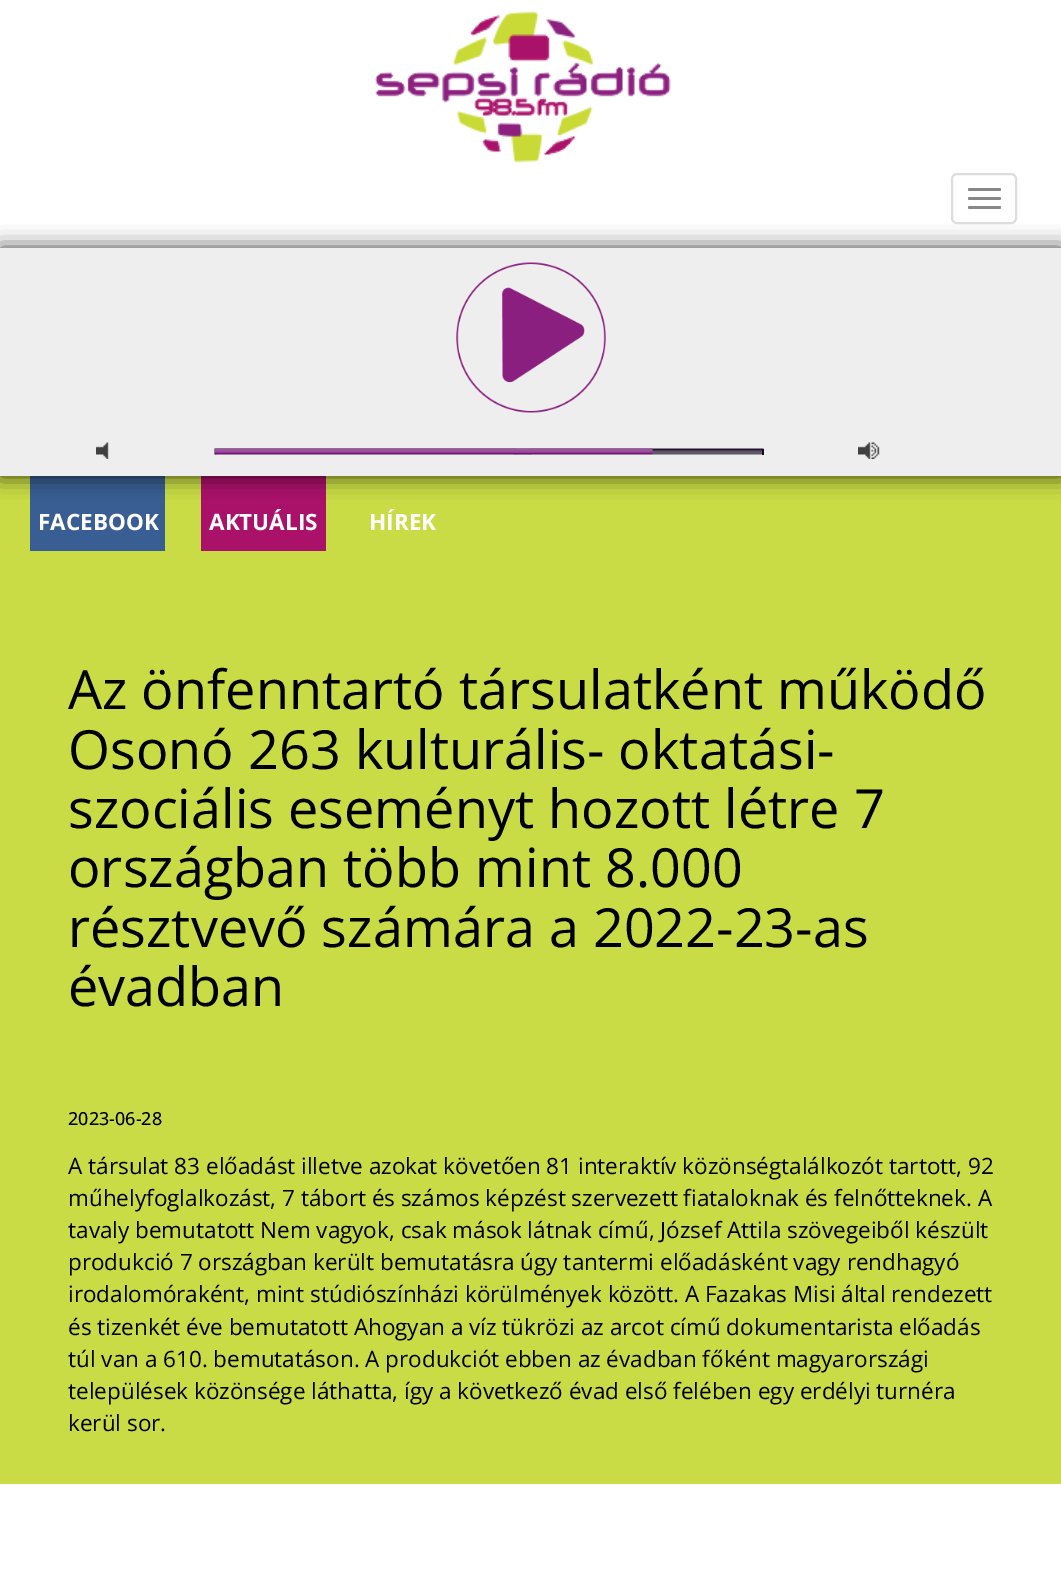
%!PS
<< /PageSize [1061 1575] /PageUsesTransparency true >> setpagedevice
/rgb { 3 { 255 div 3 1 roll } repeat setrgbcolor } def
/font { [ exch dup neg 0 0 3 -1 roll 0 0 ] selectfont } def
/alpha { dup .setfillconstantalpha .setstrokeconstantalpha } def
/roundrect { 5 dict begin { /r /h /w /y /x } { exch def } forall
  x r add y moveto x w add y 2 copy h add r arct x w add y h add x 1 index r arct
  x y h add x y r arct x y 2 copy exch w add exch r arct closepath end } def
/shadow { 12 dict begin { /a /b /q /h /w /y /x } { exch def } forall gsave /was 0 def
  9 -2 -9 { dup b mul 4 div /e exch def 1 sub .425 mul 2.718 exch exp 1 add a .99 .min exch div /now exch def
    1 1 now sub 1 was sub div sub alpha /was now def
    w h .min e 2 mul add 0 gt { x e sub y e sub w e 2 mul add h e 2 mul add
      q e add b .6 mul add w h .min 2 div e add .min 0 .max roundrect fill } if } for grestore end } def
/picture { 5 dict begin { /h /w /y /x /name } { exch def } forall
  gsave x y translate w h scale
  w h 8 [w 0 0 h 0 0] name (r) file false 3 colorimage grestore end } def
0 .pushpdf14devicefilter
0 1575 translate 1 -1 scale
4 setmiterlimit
255 255 255 rgb
0 0 1061 1575 rectfill
(img/1.rgb) 374 11 297 152 picture
221 221 221 rgb
2 setlinewidth
952 174 64 49 5 roundrect stroke
136 136 136 rgb
968 188 33 3 1.5 roundrect fill
968 197 33 3 1.5 roundrect fill
968 206 33 3 1.5 roundrect fill
[
  [0 476 1061 1008 201 220 69]
  [30 476 135 75 57 94 147]
  [201 476 125 75 170 17 105]
] { aload pop rgb rectfill } forall
0 0 0 rgb
0 248 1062 228 0 10.5 0.75 shadow
238 238 238 rgb
0 248 1061 228 rectfill
(img/2.rgb) 456 262 150 151 picture
(img/3.rgb) 96 442 13 17 picture
(img/4.rgb) 214 448 550 7 picture
24 9 32 rgb
762 449 2 6 rectfill
(img/5.rgb) 214 448 439 7 picture
(img/6.rgb) 858 442 22 17 picture
/OpenSans-Bold 22.5 font
255 255 255 rgb
[
  [(FACEBOOK) 38 530]
  [(AKTUÁLIS) 209 530]
  [(HÍREK) 369 530]
] { aload pop moveto show } forall
/OpenSans-Regular 54 font
0 0 0 rgb
[
  [(Az önfenntartó társulatként működő) 68 709]
  [(Osonó 263 kulturális- oktatási-) 68 769]
  [(szociális eseményt hozott létre 7) 68 828]
  [(országban több mint 8.000) 68 887]
  [(résztvevő számára a 2022-23-as) 68 947]
  [(évadban) 68 1006]
] { aload pop moveto show } forall
/OpenSans-Medium 18 font
68 1125 moveto (2023-06-28) show
/OpenSans-Regular 22.5 font
[
  [(A társulat 83 előadást illetve azokat követően 81 interaktív közönségtalálkozót tartott, 92) 68 1174]
  [(műhelyfoglalkozást, 7 tábort és számos képzést szervezett fiataloknak és felnőtteknek. A) 68 1206]
  [(tavaly bemutatott Nem vagyok, csak mások látnak című, József Attila szövegeiből készült) 68 1238]
  [(produkció 7 országban került bemutatásra úgy tantermi előadásként vagy rendhagyó) 68 1270]
  [(irodalomóraként, mint stúdiószínházi körülmények között. A Fazakas Misi által rendezett) 68 1302]
  [(és tizenkét éve bemutatott Ahogyan a víz tükrözi az arcot című dokumentarista előadás) 68 1335]
  [(túl van a 610. bemutatáson. A produkciót ebben az évadban főként magyarországi) 68 1367]
  [(települések közönsége láthatta, így a következő évad első felében egy erdélyi turnéra) 68 1399]
  [(kerül sor.) 68 1431]
] { aload pop moveto show } forall
.poppdf14devicefilter showpage
